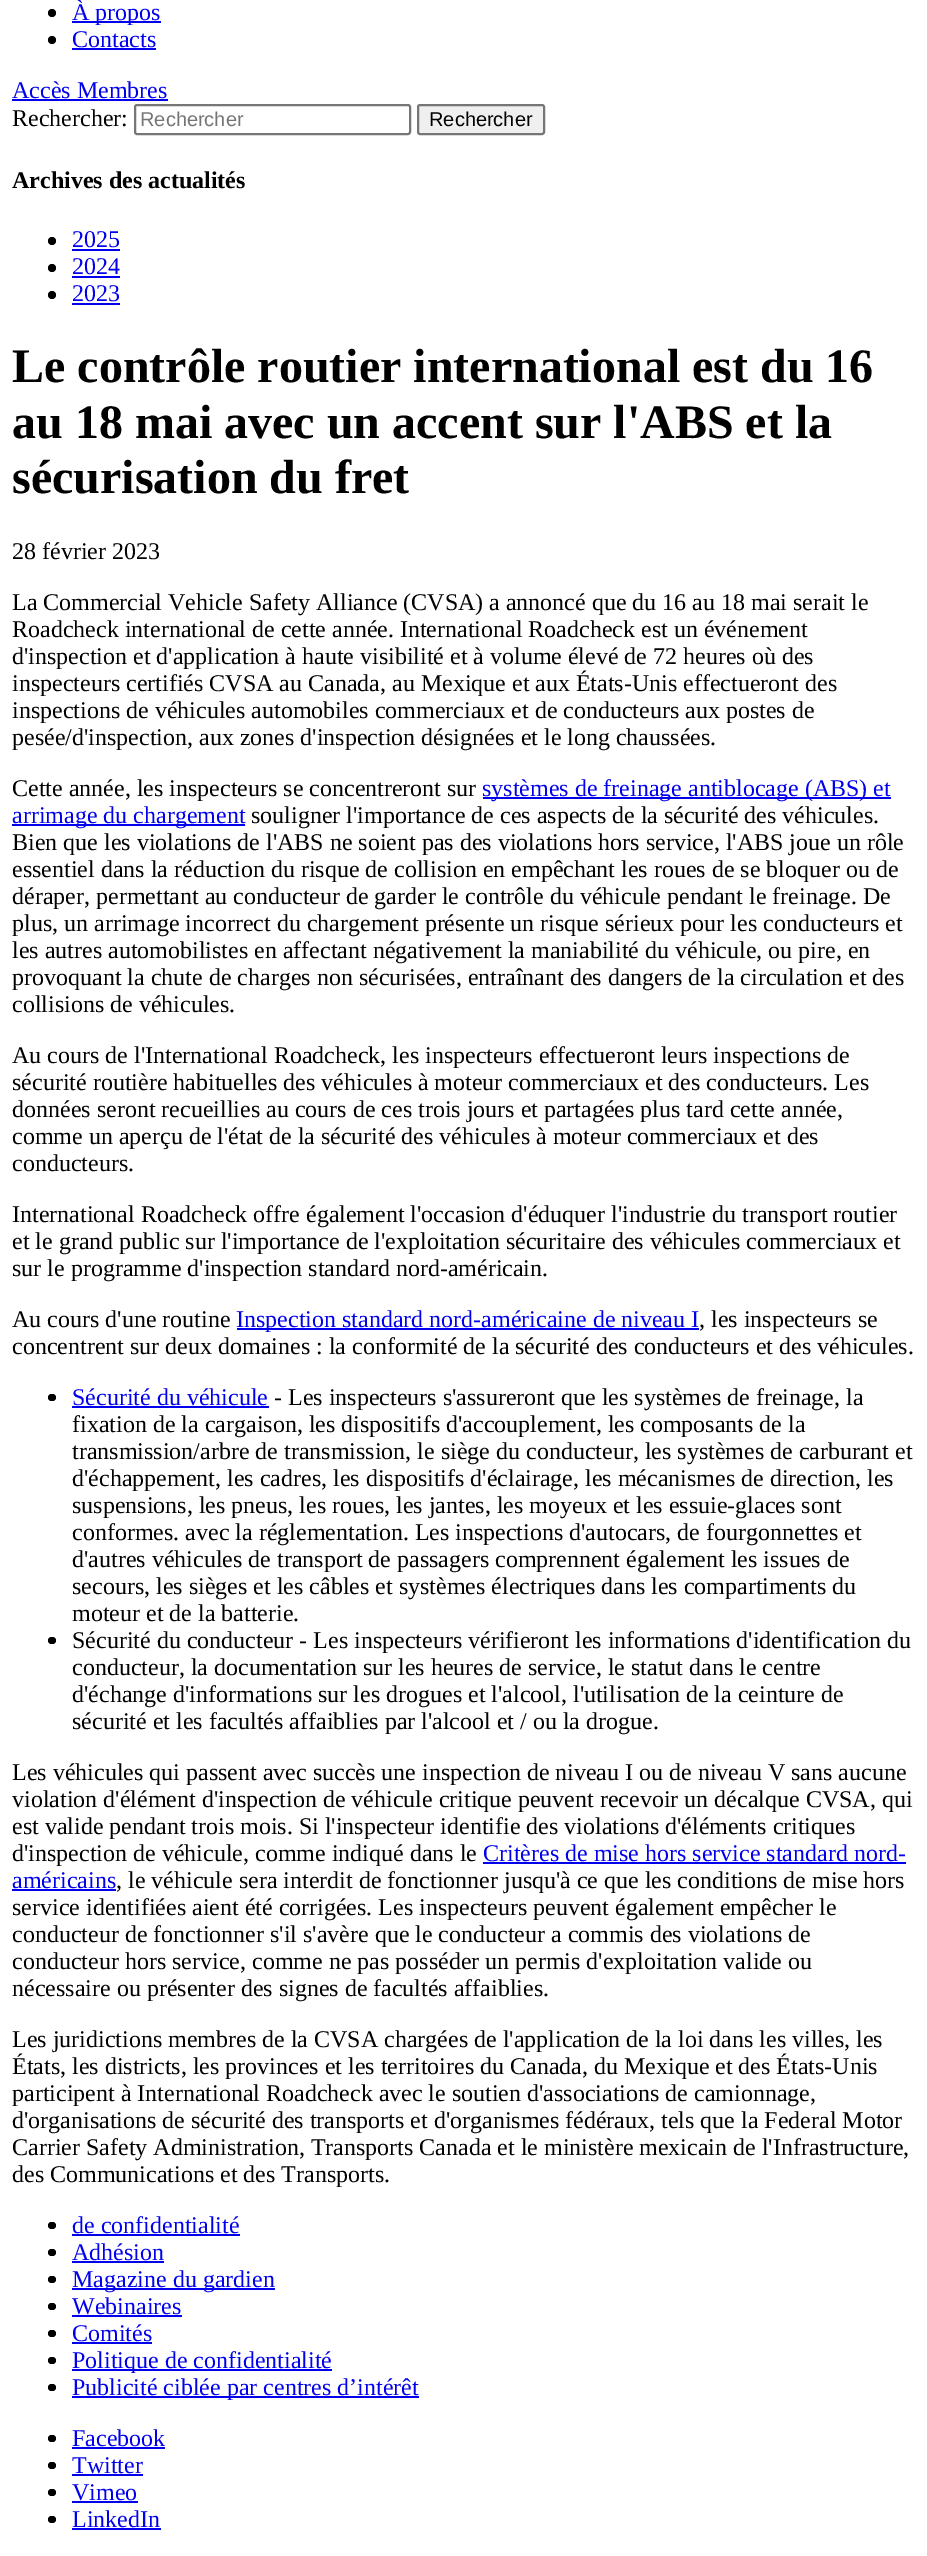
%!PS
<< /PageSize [927 2556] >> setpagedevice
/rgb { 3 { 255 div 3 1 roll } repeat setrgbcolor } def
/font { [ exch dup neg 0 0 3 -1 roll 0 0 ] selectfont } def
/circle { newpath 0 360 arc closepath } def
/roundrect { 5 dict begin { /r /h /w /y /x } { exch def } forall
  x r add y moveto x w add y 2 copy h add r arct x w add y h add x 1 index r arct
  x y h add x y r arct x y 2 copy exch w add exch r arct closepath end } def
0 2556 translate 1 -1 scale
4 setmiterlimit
255 255 255 rgb
0 0 927 2556 rectfill
0 0 0 rgb
52 13 4 circle fill
0 0 238 rgb
72 21 89 2 rectfill
0 0 0 rgb
52 40 4 circle fill
0 0 238 rgb
72 48 84 2 rectfill
12 99 156 2 rectfill
118 118 118 rgb
2 setlinewidth
135 105 275 29 2 roundrect stroke
239 239 239 rgb
418 105 126 29 2 roundrect gsave fill grestore
118 118 118 rgb
stroke
0 0 0 rgb
52 241 4 circle fill
0 0 238 rgb
72 249 48 2 rectfill
0 0 0 rgb
52 268 4 circle fill
0 0 238 rgb
72 276 48 2 rectfill
0 0 0 rgb
52 295 4 circle fill
[
  [72 303 48 2 0 0 238]
  [483 797 408 2 0 0 238]
  [12 824 233 2 0 0 238]
  [237 1328 462 2 0 0 238]
] { aload pop rgb rectfill } forall
0 0 0 rgb
48 1394 8 7 3.5 roundrect fill
0 0 238 rgb
72 1406 197 2 rectfill
0 0 0 rgb
48 1637 8 7 3.5 roundrect fill
0 0 238 rgb
483 1862 423 2 rectfill
12 1889 104 2 rectfill
0 0 0 rgb
48 2222 8 7 3.5 roundrect fill
0 0 238 rgb
72 2234 168 2 rectfill
0 0 0 rgb
48 2249 8 7 3.5 roundrect fill
0 0 238 rgb
72 2261 92 2 rectfill
0 0 0 rgb
48 2276 8 7 3.5 roundrect fill
0 0 238 rgb
72 2288 203 2 rectfill
0 0 0 rgb
48 2303 8 7 3.5 roundrect fill
0 0 238 rgb
72 2315 110 2 rectfill
0 0 0 rgb
48 2330 8 7 3.5 roundrect fill
0 0 238 rgb
72 2342 80 2 rectfill
0 0 0 rgb
48 2357 8 7 3.5 roundrect fill
0 0 238 rgb
72 2369 260 2 rectfill
0 0 0 rgb
48 2384 8 7 3.5 roundrect fill
0 0 238 rgb
72 2396 347 2 rectfill
0 0 0 rgb
48 2435 8 7 3.5 roundrect fill
0 0 238 rgb
72 2447 93 2 rectfill
0 0 0 rgb
48 2462 8 7 3.5 roundrect fill
0 0 238 rgb
72 2474 71 2 rectfill
0 0 0 rgb
48 2489 8 7 3.5 roundrect fill
0 0 238 rgb
72 2501 66 2 rectfill
0 0 0 rgb
48 2516 8 7 3.5 roundrect fill
0 0 238 rgb
72 2528 89 2 rectfill
/LiberationSerif-Regular 24 font
[
  [(À propos) 72 20]
  [(Contacts) 72 47]
  [(Accès Membres) 12 98]
] { aload pop moveto show } forall
0 0 0 rgb
12 126 moveto (Rechercher:) show
/LiberationSans-Regular 20 font
117 117 117 rgb
140 126 moveto (Rechercher) show
0 0 0 rgb
429 126 moveto (Rechercher) show
/LiberationSerif-Bold 24 font
12 188 moveto (Archives des actualités) show
/LiberationSerif-Regular 24 font
0 0 238 rgb
[
  [(2025) 72 247]
  [(2024) 72 274]
  [(2023) 72 301]
] { aload pop moveto show } forall
/LiberationSerif-Bold 48 font
0 0 0 rgb
[
  [(Le contrôle routier international est du 16) 12 382]
  [(au 18 mai avec un accent sur l'ABS et la) 12 438]
  [(sécurisation du fret) 12 493]
] { aload pop moveto show } forall
/LiberationSerif-Regular 24 font
[
  [(28 février 2023) 12 559]
  [(La Commercial Vehicle Safety Alliance \(CVSA\) a annoncé que du 16 au 18 mai serait le) 12 610]
  [(Roadcheck international de cette année. International Roadcheck est un événement) 12 637]
  [(d'inspection et d'application à haute visibilité et à volume élevé de 72 heures où des) 12 664]
  [(inspecteurs certifiés CVSA au Canada, au Mexique et aux États-Unis effectueront des) 12 691]
  [(inspections de véhicules automobiles commerciaux et de conducteurs aux postes de) 12 718]
  [(pesée/d'inspection, aux zones d'inspection désignées et le long chaussées.) 12 745]
  [(Cette année, les inspecteurs se concentreront sur) 12 796]
] { aload pop moveto show } forall
0 0 238 rgb
482 796 moveto (systèmes de freinage antiblocage \(ABS\) et) show
12 823 moveto (arrimage du chargement) show
0 0 0 rgb
[
  [(souligner l'importance de ces aspects de la sécurité des véhicules.) 251 823]
  [(Bien que les violations de l'ABS ne soient pas des violations hors service, l'ABS joue un rôle) 12 850]
  [(essentiel dans la réduction du risque de collision en empêchant les roues de se bloquer ou de) 12 877]
  [(déraper, permettant au conducteur de garder le contrôle du véhicule pendant le freinage. De) 12 904]
  [(plus, un arrimage incorrect du chargement présente un risque sérieux pour les conducteurs et) 12 931]
  [(les autres automobilistes en affectant négativement la maniabilité du véhicule, ou pire, en) 12 958]
  [(provoquant la chute de charges non sécurisées, entraînant des dangers de la circulation et des) 12 985]
  [(collisions de véhicules.) 12 1012]
  [(Au cours de l'International Roadcheck, les inspecteurs effectueront leurs inspections de) 12 1063]
  [(sécurité routière habituelles des véhicules à moteur commerciaux et des conducteurs. Les) 12 1090]
  [(données seront recueillies au cours de ces trois jours et partagées plus tard cette année,) 12 1117]
  [(comme un aperçu de l'état de la sécurité des véhicules à moteur commerciaux et des) 12 1144]
  [(conducteurs.) 12 1171]
  [(International Roadcheck offre également l'occasion d'éduquer l'industrie du transport routier) 12 1222]
  [(et le grand public sur l'importance de l'exploitation sécuritaire des véhicules commerciaux et) 12 1249]
  [(sur le programme d'inspection standard nord-américain.) 12 1276]
  [(Au cours d'une routine) 12 1327]
] { aload pop moveto show } forall
0 0 238 rgb
236 1327 moveto (Inspection standard nord-américaine de niveau I) show
0 0 0 rgb
699 1327 moveto (, les inspecteurs se) show
12 1354 moveto (concentrent sur deux domaines : la conformité de la sécurité des conducteurs et des véhicules.) show
0 0 238 rgb
72 1405 moveto (Sécurité du véhicule) show
0 0 0 rgb
[
  [(- Les inspecteurs s'assureront que les systèmes de freinage, la) 274 1405]
  [(fixation de la cargaison, les dispositifs d'accouplement, les composants de la) 72 1432]
  [(transmission/arbre de transmission, le siège du conducteur, les systèmes de carburant et) 72 1459]
  [(d'échappement, les cadres, les dispositifs d'éclairage, les mécanismes de direction, les) 72 1486]
  [(suspensions, les pneus, les roues, les jantes, les moyeux et les essuie-glaces sont) 72 1513]
  [(conformes. avec la réglementation. Les inspections d'autocars, de fourgonnettes et) 72 1540]
  [(d'autres véhicules de transport de passagers comprennent également les issues de) 72 1567]
  [(secours, les sièges et les câbles et systèmes électriques dans les compartiments du) 72 1594]
  [(moteur et de la batterie.) 72 1621]
  [(Sécurité du conducteur - Les inspecteurs vérifieront les informations d'identification du) 72 1648]
  [(conducteur, la documentation sur les heures de service, le statut dans le centre) 72 1675]
  [(d'échange d'informations sur les drogues et l'alcool, l'utilisation de la ceinture de) 72 1702]
  [(sécurité et les facultés affaiblies par l'alcool et / ou la drogue.) 72 1729]
  [(Les véhicules qui passent avec succès une inspection de niveau I ou de niveau V sans aucune) 12 1780]
  [(violation d'élément d'inspection de véhicule critique peuvent recevoir un décalque CVSA, qui) 12 1807]
  [(est valide pendant trois mois. Si l'inspecteur identifie des violations d'éléments critiques) 12 1834]
  [(d'inspection de véhicule, comme indiqué dans le) 12 1861]
] { aload pop moveto show } forall
0 0 238 rgb
483 1861 moveto (Critères de mise hors service standard nord-) show
12 1888 moveto (américains) show
0 0 0 rgb
[
  [(, le véhicule sera interdit de fonctionner jusqu'à ce que les conditions de mise hors) 116 1888]
  [(service identifiées aient été corrigées. Les inspecteurs peuvent également empêcher le) 12 1915]
  [(conducteur de fonctionner s'il s'avère que le conducteur a commis des violations de) 12 1942]
  [(conducteur hors service, comme ne pas posséder un permis d'exploitation valide ou) 12 1969]
  [(nécessaire ou présenter des signes de facultés affaiblies.) 12 1996]
  [(Les juridictions membres de la CVSA chargées de l'application de la loi dans les villes, les) 12 2047]
  [(États, les districts, les provinces et les territoires du Canada, du Mexique et des États-Unis) 12 2074]
  [(participent à International Roadcheck avec le soutien d'associations de camionnage,) 12 2101]
  [(d'organisations de sécurité des transports et d'organismes fédéraux, tels que la Federal Motor) 12 2128]
  [(Carrier Safety Administration, Transports Canada et le ministère mexicain de l'Infrastructure,) 12 2155]
  [(des Communications et des Transports.) 12 2182]
] { aload pop moveto show } forall
0 0 238 rgb
[
  [(de confidentialité) 72 2233]
  [(Adhésion) 72 2260]
  [(Magazine du gardien) 72 2287]
  [(Webinaires) 72 2314]
  [(Comités) 72 2341]
  [(Politique de confidentialité) 72 2368]
  [(Publicité ciblée par centres d’intérêt) 72 2395]
  [(Facebook) 72 2446]
  [(Twitter) 72 2473]
  [(Vimeo) 72 2500]
  [(LinkedIn) 72 2527]
] { aload pop moveto show } forall
showpage
